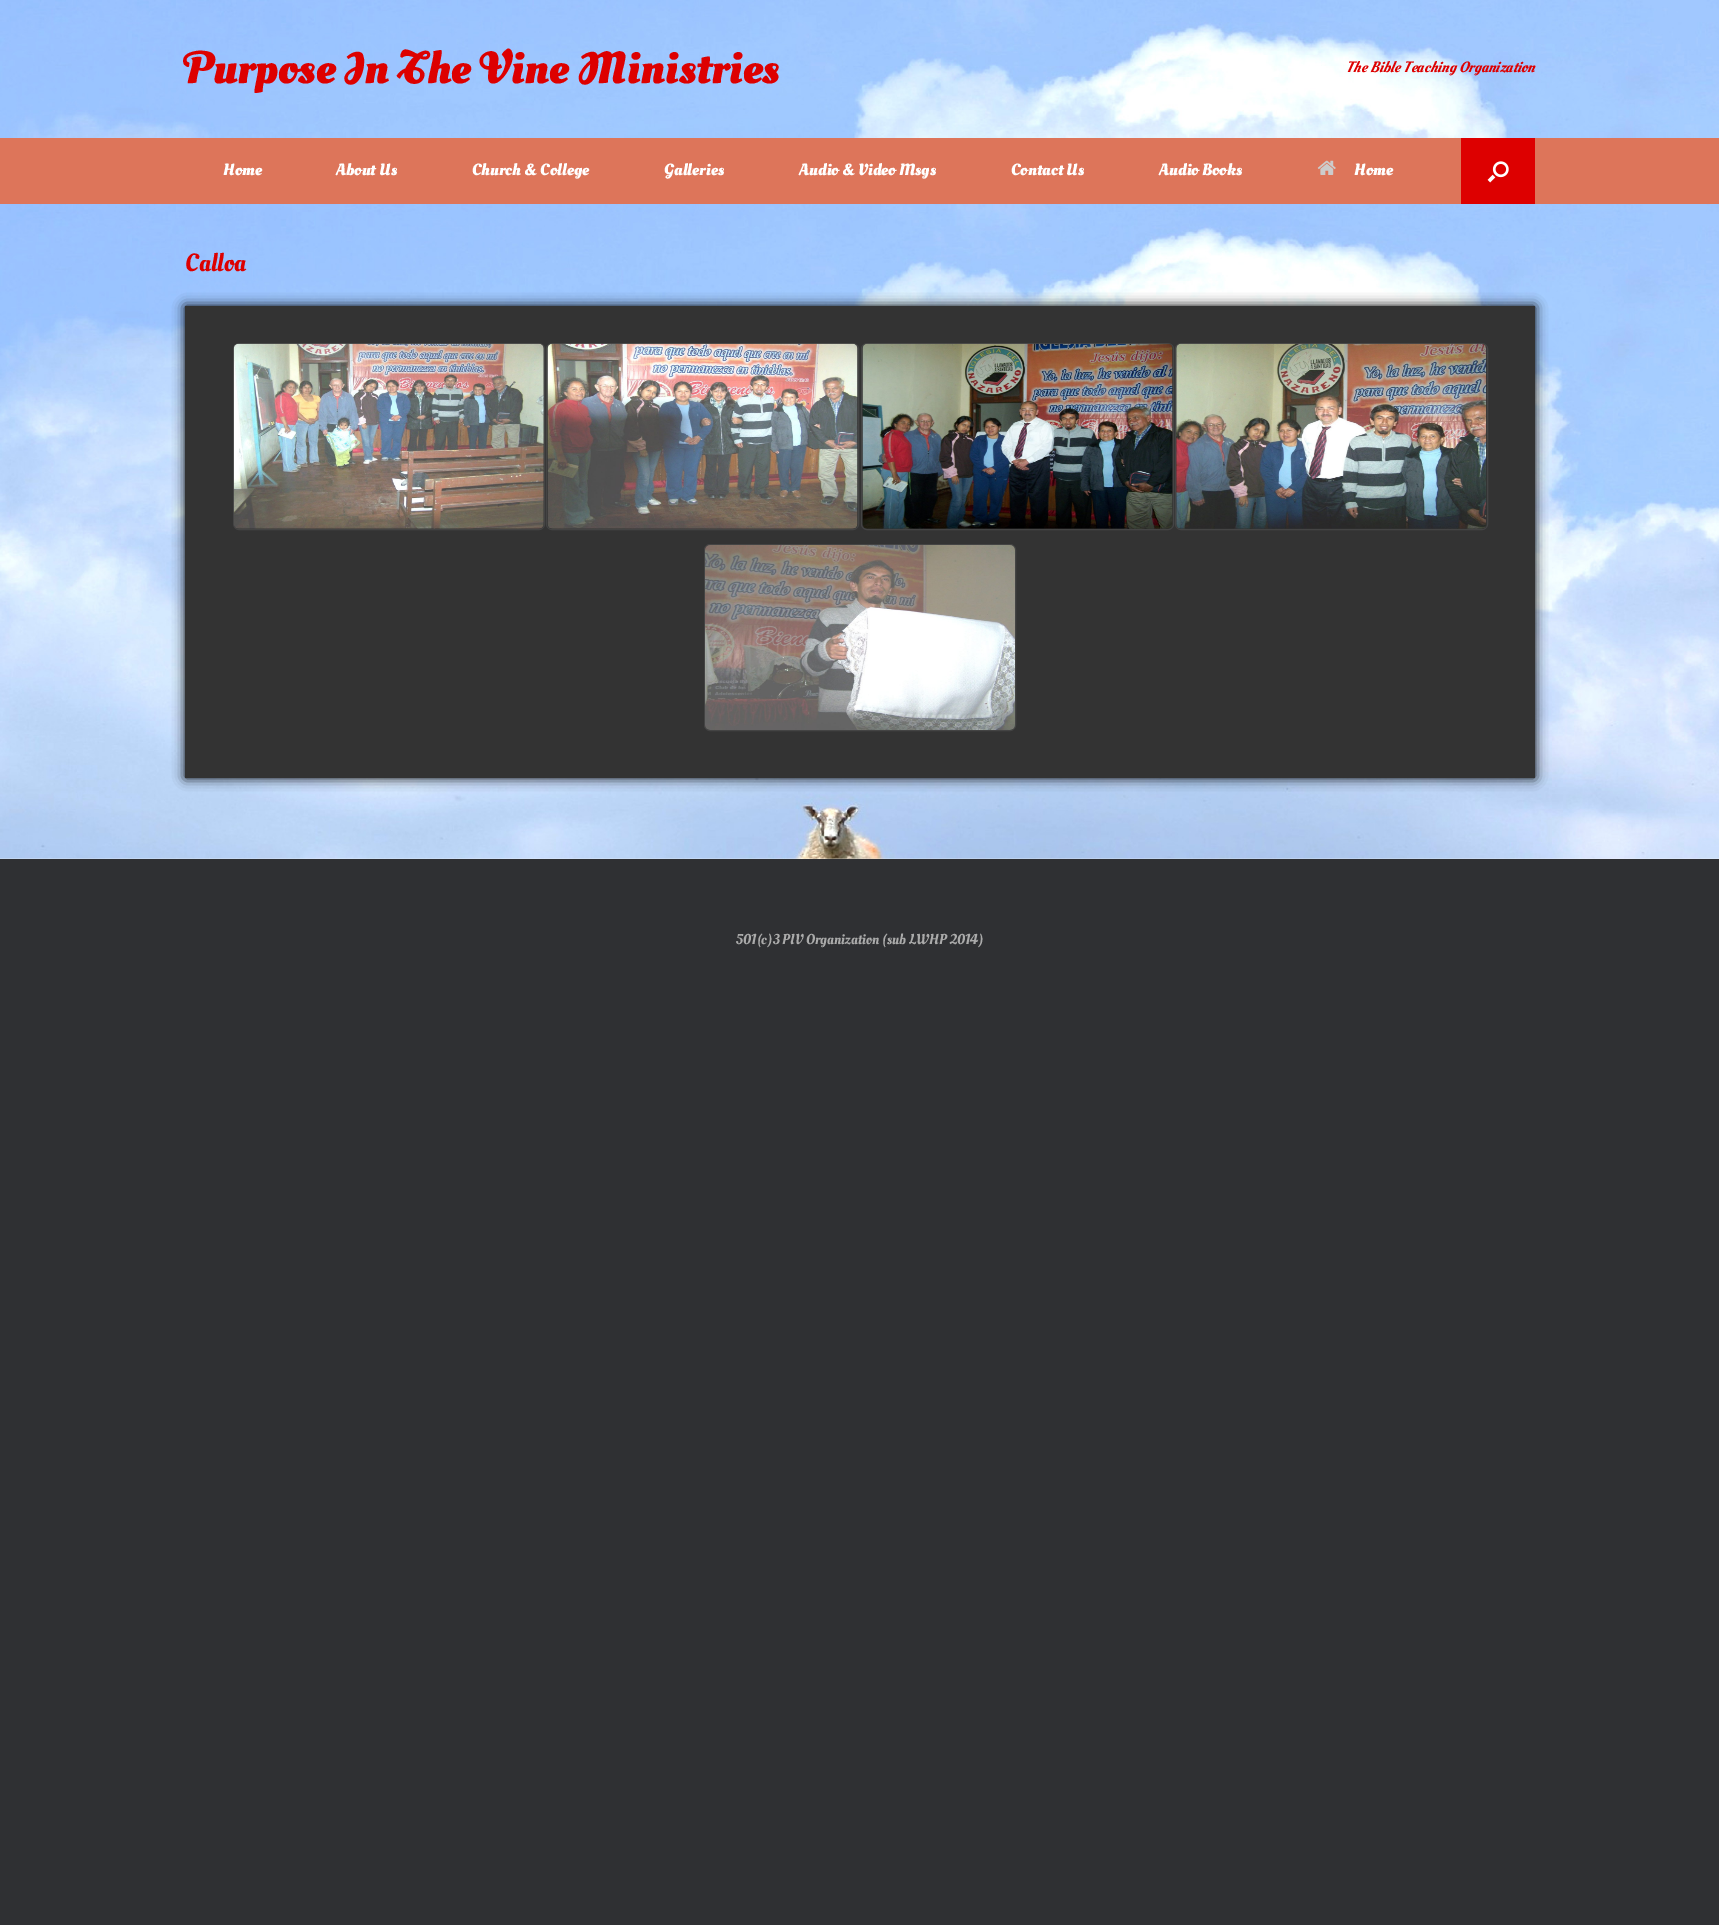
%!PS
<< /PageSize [1719 1925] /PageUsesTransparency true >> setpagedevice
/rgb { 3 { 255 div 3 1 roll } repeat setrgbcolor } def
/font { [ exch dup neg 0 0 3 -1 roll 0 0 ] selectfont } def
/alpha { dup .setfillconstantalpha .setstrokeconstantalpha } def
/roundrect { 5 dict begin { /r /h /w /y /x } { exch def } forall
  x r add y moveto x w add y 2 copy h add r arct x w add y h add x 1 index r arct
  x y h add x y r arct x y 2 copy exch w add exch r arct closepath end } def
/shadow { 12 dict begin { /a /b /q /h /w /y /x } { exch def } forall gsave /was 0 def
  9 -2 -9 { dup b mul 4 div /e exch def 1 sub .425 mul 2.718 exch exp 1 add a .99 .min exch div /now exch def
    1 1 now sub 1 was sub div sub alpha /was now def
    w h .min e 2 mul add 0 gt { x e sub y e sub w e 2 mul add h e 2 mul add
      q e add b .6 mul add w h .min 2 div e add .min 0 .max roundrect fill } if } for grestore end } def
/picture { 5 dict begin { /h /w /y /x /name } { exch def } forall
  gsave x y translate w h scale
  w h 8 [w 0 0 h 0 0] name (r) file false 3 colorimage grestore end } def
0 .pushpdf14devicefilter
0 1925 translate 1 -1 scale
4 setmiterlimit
47 48 51 rgb
0 0 1719 1925 rectfill
(img/1.rgb) 0 0 1719 138 picture
221 117 90 rgb
0 138 1719 66 rectfill
(img/2.rgb) 1317 160 19 15 picture
221 0 0 rgb
1461 138 74 66 rectfill
(img/3.rgb) 1487 161 22 22 picture
(img/4.rgb) 0 204 1719 655 picture
0 0 0 rgb
185 306 1350 472 0 6 1 shadow
51 51 51 rgb
185 306 1350 472 rectfill
68 68 68 rgb
233.5 343.5 311 186 5.5 roundrect stroke
(img/5.rgb) 233 343 311 186 picture
546.5 343.5 312 186 5.5 roundrect stroke
(img/6.rgb) 547 343 311 186 picture
861.5 343.5 312 186 5.5 roundrect stroke
(img/7.rgb) 862 343 311 186 picture
1175.5 343.5 312 186 5.5 roundrect stroke
(img/8.rgb) 1176 343 311 186 picture
704.5 544.5 311 186 5.5 roundrect stroke
(img/9.rgb) 705 545 310 185 picture
/OleoScriptSwashCaps-Bold 45 font
221 0 0 rgb
185 83 moveto (Purpose In The Vine Ministries) show
/OleoScript-Italic 15 font
1346 72 moveto (The Bible Teaching Organization) show
/OleoScript-Bold 16.25 font
255 255 255 rgb
[
  [(Home) 223 175]
  [(About Us) 336 175]
  [(Church & College) 472 175]
  [(Galleries) 664 175]
  [(Audio & Video Msgs) 799 175]
  [(Contact Us) 1011 175]
  [(Audio Books) 1159 175]
  [(Home) 1354 175]
] { aload pop moveto show } forall
/OleoScript-Regular 25 font
221 0 0 rgb
185 271 moveto (Calloa) show
/OleoScript-Regular 14.4 font
170 170 170 rgb
736 944 moveto (501\(c\)3 PIV Organization \(sub LWHP 2014\)) show
.poppdf14devicefilter showpage
